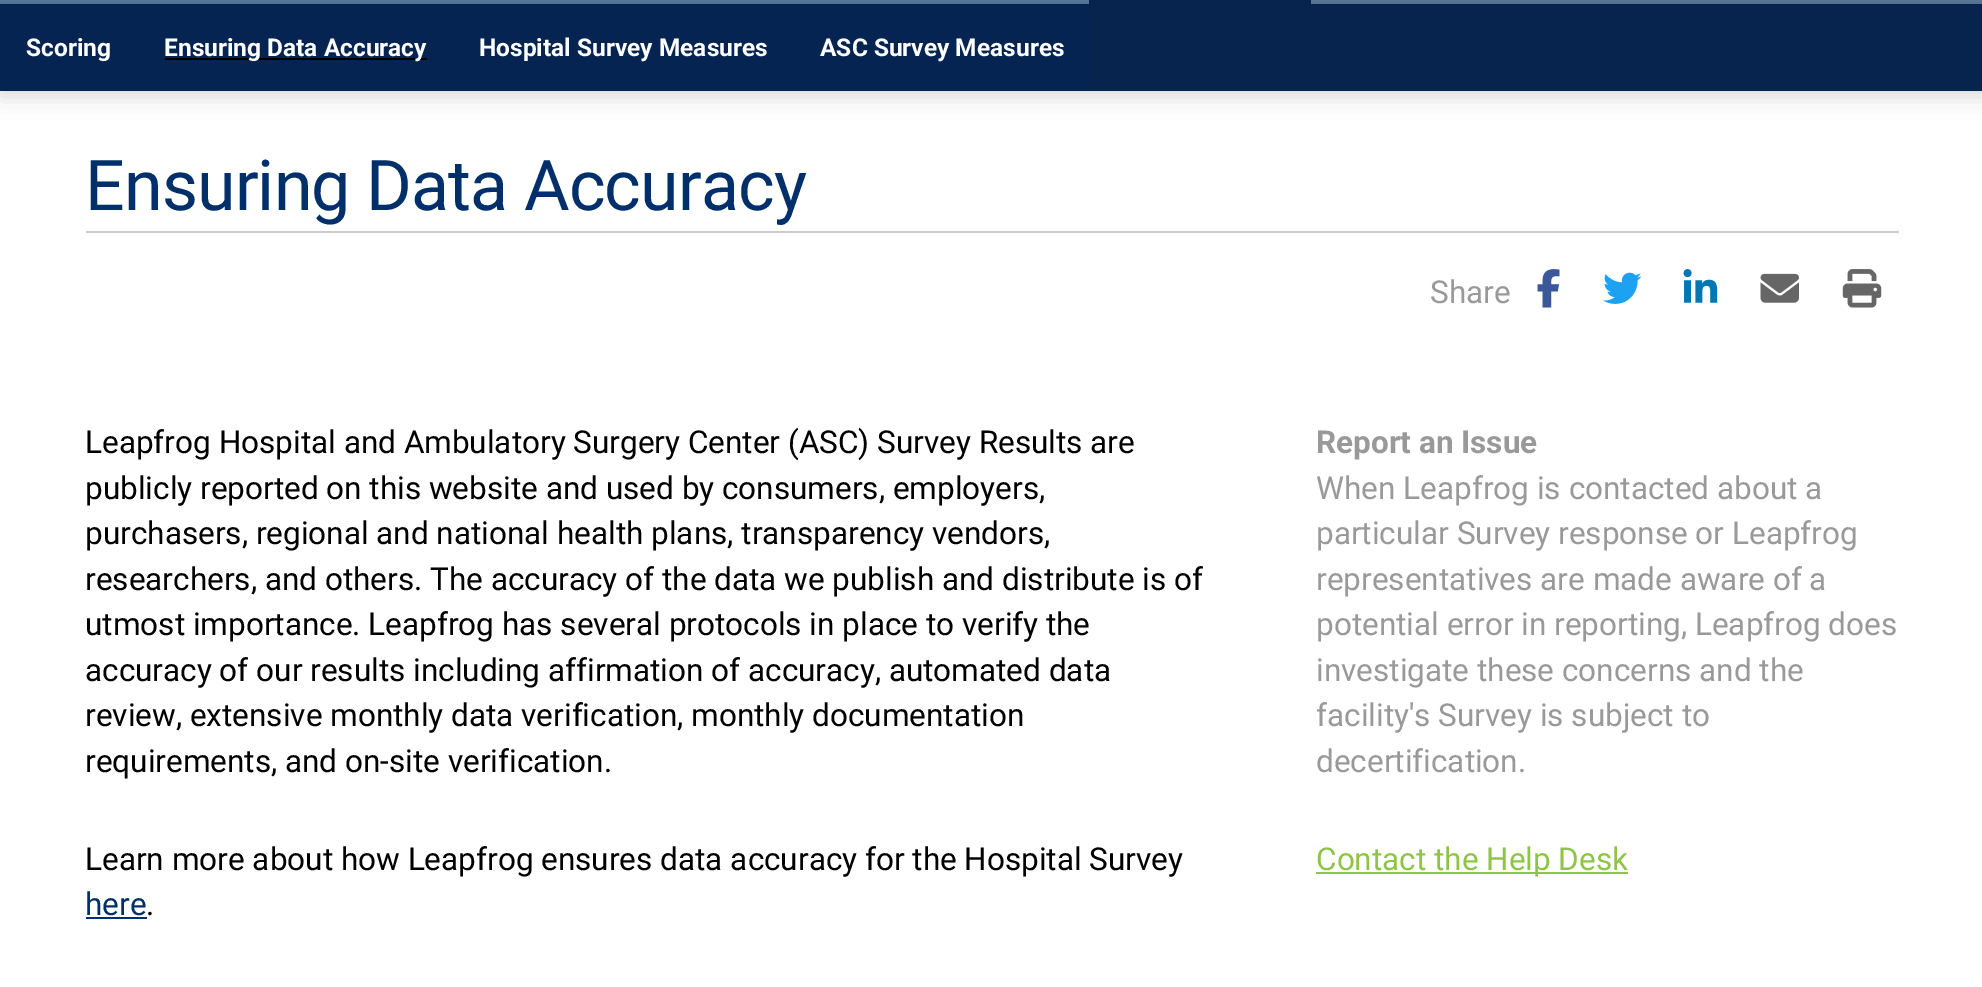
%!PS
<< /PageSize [1982 987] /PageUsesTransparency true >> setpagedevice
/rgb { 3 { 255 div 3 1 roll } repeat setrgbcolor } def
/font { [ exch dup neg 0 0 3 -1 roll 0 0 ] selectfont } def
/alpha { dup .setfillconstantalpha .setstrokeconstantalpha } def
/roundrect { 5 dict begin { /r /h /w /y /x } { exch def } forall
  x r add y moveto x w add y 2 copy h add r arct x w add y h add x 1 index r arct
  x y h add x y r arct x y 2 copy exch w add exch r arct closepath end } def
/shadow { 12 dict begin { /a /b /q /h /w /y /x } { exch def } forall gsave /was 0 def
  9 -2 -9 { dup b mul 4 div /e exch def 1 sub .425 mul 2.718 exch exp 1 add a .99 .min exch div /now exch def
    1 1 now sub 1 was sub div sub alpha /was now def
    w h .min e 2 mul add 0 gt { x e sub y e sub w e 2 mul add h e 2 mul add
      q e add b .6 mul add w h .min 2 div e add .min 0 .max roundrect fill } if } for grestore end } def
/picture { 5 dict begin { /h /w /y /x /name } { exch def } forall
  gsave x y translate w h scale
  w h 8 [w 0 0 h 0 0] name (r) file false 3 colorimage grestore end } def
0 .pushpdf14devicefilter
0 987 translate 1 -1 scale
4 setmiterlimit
255 255 255 rgb
0 0 1982 987 rectfill
90 119 155 rgb
0 0 1982 4 rectfill
6 36 81 rgb
1089 0 222 4 rectfill
0 0 0 rgb
0 9 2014 87 0 10.5 0.15 shadow
[
  [1090 4 892 87 6 36 78]
  [0 4 1090 87 6 36 81]
  [165 58 262 2 0 0 0]
  [86 231 1813 2 204 204 204]
] { aload pop rgb rectfill } forall
(img/1.rgb) 1537 269 23 39 picture
(img/2.rgb) 1603 272 39 32 picture
(img/3.rgb) 1683 269 35 34 picture
(img/4.rgb) 1760 273 39 30 picture
(img/5.rgb) 1842 269 40 39 picture
3 46 107 rgb
86 917 61 2 rectfill
142 197 72 rgb
1316 872 312 2 rectfill
/Roboto-Bold 24.5 font
255 255 255 rgb
[
  [(Scoring) 26 56]
  [(Ensuring Data Accuracy) 164 56]
  [(Hospital Survey Measures) 479 56]
  [(ASC Survey Measures) 820 56]
] { aload pop moveto show } forall
/Roboto-Regular 70 font
0 47 106 rgb
85 210 moveto -0.9 0 (Ensuring Data Accuracy) ashow
/Roboto-Regular 31.5 font
153 153 153 rgb
1430 303 moveto (Share) show
0 0 0 rgb
[
  [(Leapfrog Hospital and Ambulatory Surgery Center \(ASC\) Survey Results are) 85 453]
  [(publicly reported on this website and used by consumers, employers,) 85 499]
  [(purchasers, regional and national health plans, transparency vendors,) 85 544]
  [(researchers, and others. The accuracy of the data we publish and distribute is of) 85 590]
  [(utmost importance. Leapfrog has several protocols in place to verify the) 85 635]
  [(accuracy of our results including affirmation of accuracy, automated data) 85 681]
  [(review, extensive monthly data verification, monthly documentation) 85 726]
  [(requirements, and on-site verification.) 85 772]
  [(Learn more about how Leapfrog ensures data accuracy for the Hospital Survey) 85 870]
] { aload pop moveto show } forall
0 47 106 rgb
85 915 moveto (here) show
0 0 0 rgb
146 915 moveto (.) show
/Roboto-Bold 31.5 font
153 153 153 rgb
1316 453 moveto (Report an Issue) show
/Roboto-Regular 31.5 font
[
  [(When Leapfrog is contacted about a) 1316 499]
  [(particular Survey response or Leapfrog) 1316 544]
  [(representatives are made aware of a) 1316 590]
  [(potential error in reporting, Leapfrog does) 1316 635]
  [(investigate these concerns and the) 1316 681]
  [(facility's Survey is subject to) 1316 726]
  [(decertification.) 1316 772]
] { aload pop moveto show } forall
142 197 72 rgb
1316 870 moveto (Contact the Help Desk) show
.poppdf14devicefilter showpage
